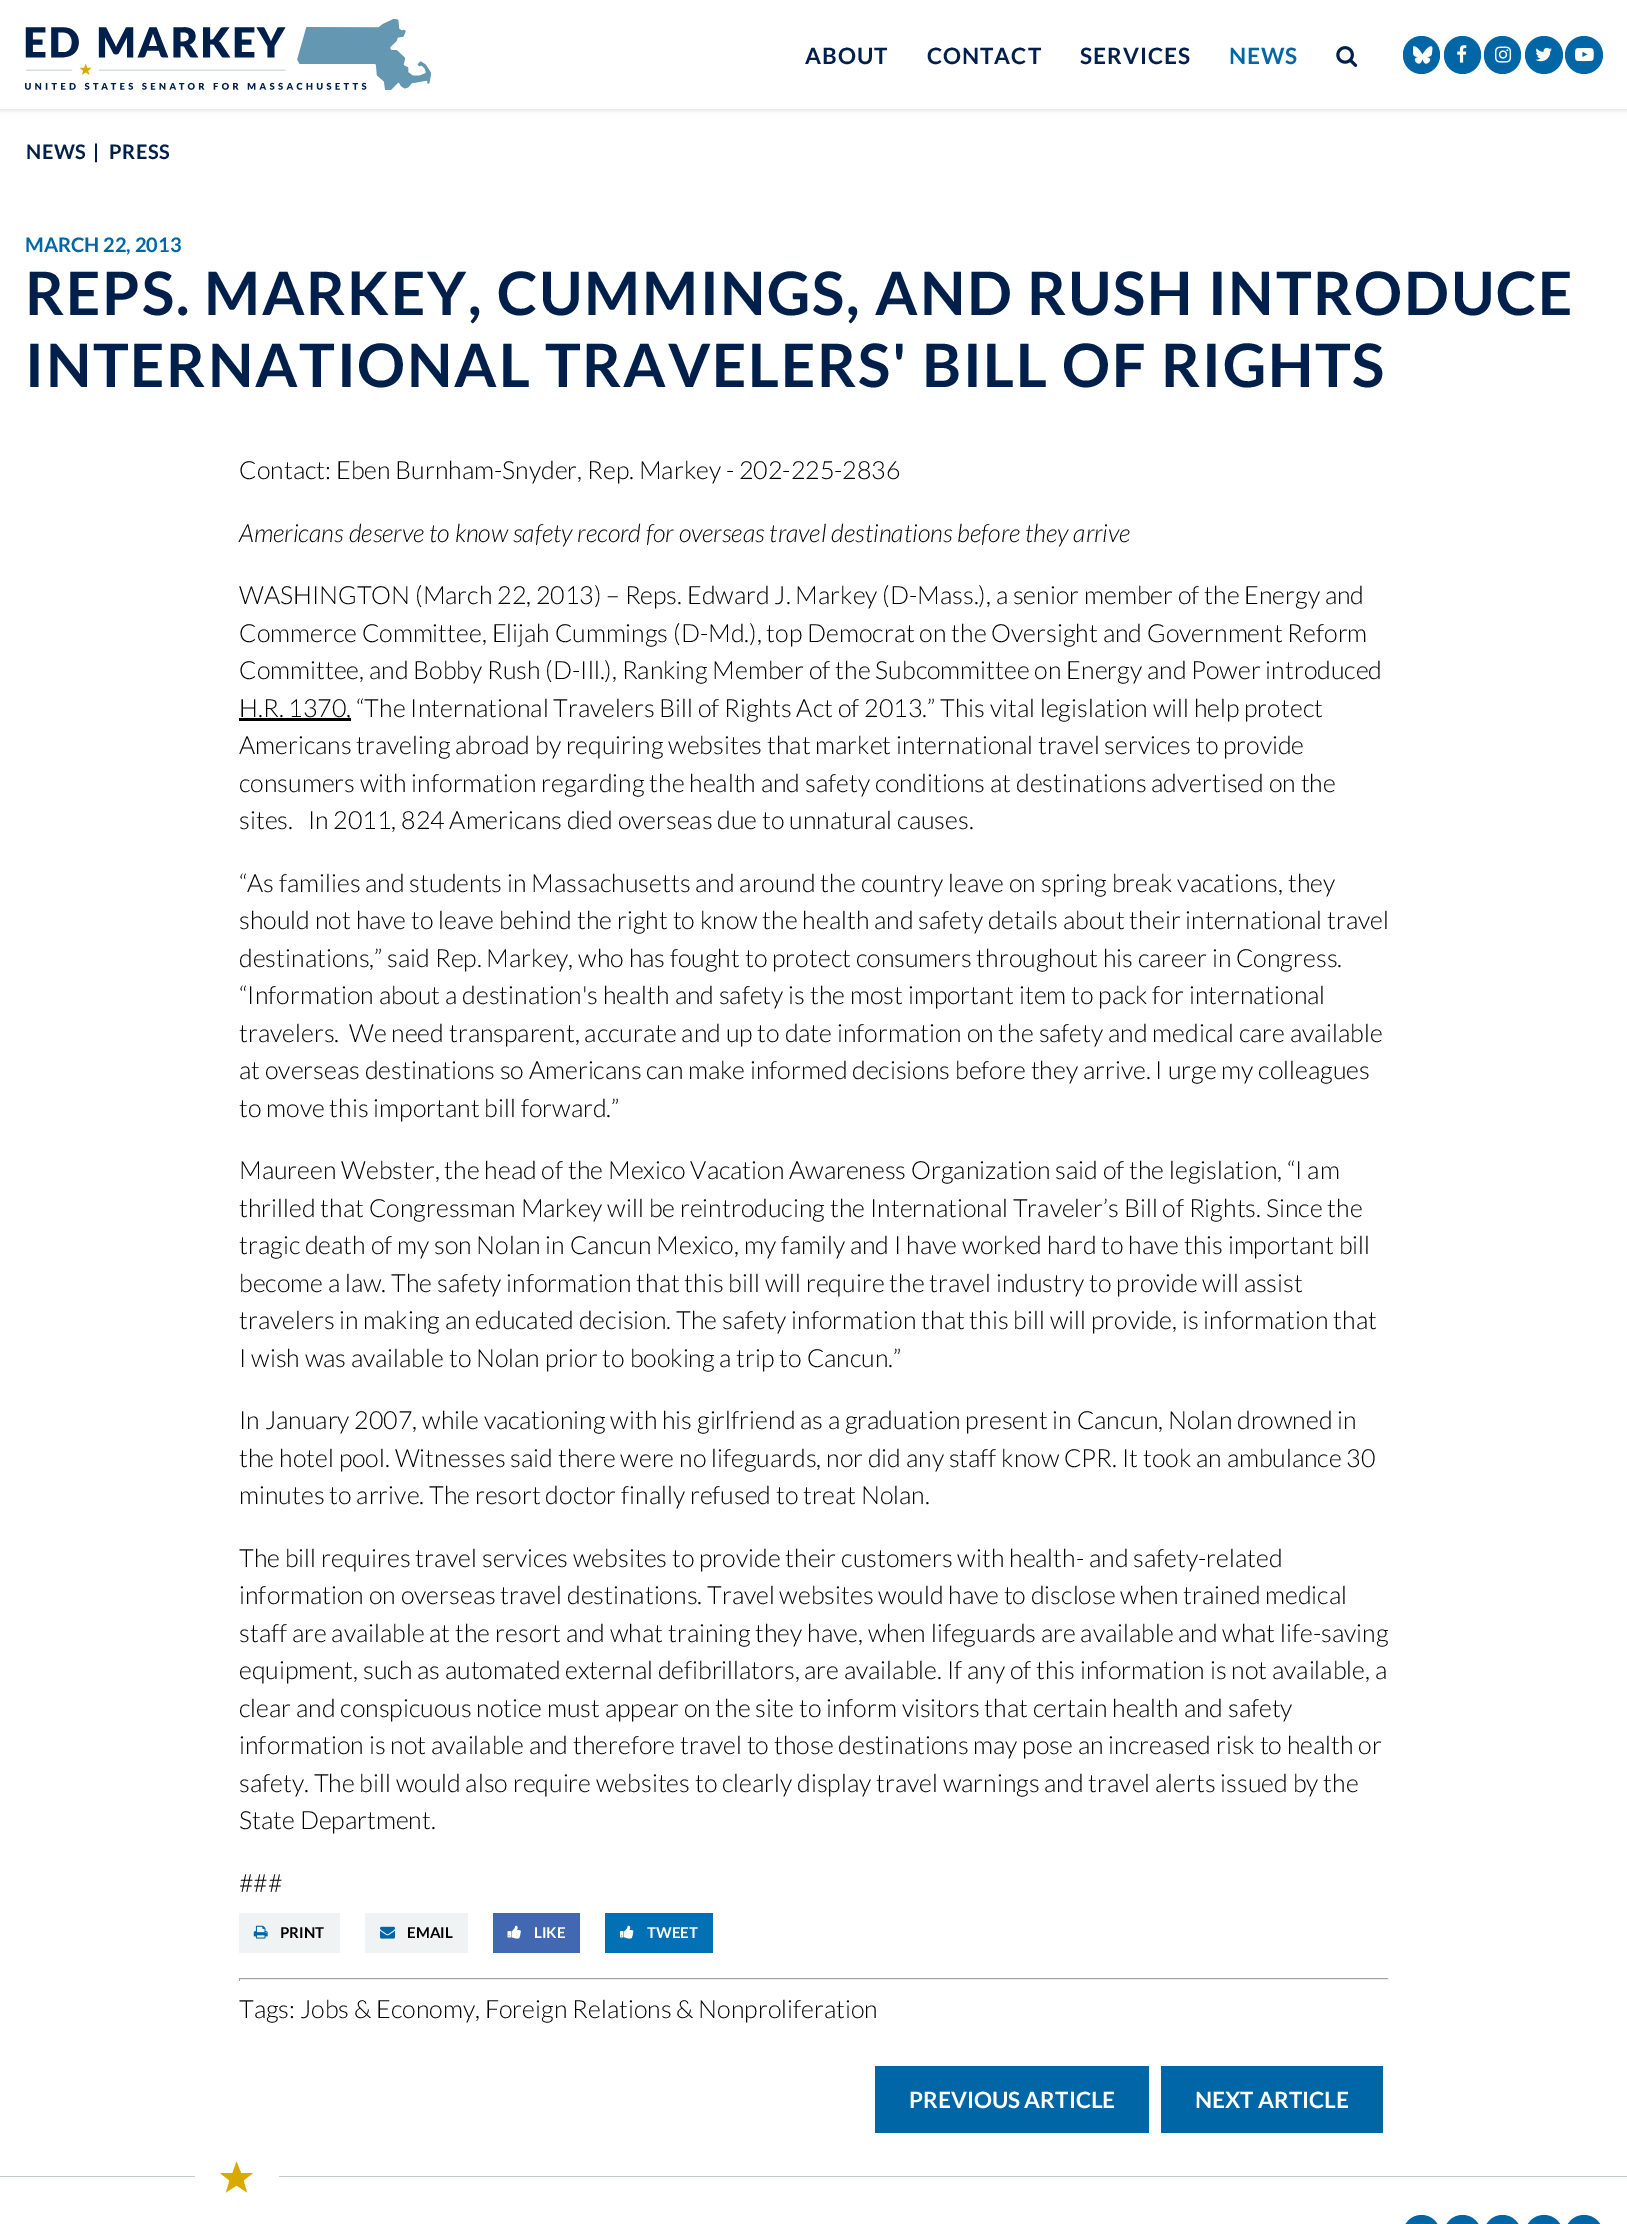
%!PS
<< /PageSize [1627 2224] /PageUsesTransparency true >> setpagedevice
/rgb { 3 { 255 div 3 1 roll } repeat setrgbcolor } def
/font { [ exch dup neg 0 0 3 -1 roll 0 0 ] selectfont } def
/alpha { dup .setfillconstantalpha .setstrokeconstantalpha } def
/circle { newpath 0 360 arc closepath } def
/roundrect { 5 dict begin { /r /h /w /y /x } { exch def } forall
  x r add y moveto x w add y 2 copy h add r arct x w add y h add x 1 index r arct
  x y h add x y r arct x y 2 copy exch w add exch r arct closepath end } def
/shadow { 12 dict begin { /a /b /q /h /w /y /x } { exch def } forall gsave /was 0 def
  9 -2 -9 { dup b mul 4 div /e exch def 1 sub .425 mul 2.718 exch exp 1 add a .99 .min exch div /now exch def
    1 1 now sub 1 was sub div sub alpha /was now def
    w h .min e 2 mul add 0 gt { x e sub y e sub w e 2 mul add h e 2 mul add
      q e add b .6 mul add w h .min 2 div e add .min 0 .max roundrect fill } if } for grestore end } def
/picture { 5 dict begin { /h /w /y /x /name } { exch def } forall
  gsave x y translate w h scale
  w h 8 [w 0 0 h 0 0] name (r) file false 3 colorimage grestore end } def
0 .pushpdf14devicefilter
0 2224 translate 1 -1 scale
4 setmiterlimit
255 255 255 rgb
0 0 1627 2224 rectfill
0 0 0 rgb
0 3 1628 108 0 2 0.1 shadow
255 255 255 rgb
0 0 1627 109 rectfill
(img/1.rgb) 25 19 406 71 picture
(img/2.rgb) 1336 46 22 21 picture
0 102 165 rgb
1403 36 37 38 18.5 roundrect fill
(img/3.rgb) 1413 46 20 18 picture
1444 36 37 38 18.5 roundrect fill
(img/4.rgb) 1457 45 10 18 picture
1484 36 37 38 18.5 roundrect fill
(img/5.rgb) 1495 46 17 17 picture
1544 55 19 circle fill
(img/6.rgb) 1535 47 17 15 picture
1584 55 19 circle fill
(img/7.rgb) 1575 47 19 15 picture
0 0 0 rgb
239 718 112 3 rectfill
240 243 244 rgb
239 1913 101 40 rectfill
(img/8.rgb) 253 1925 15 14 picture
365 1913 103 40 rectfill
(img/9.rgb) 380 1926 15 13 picture
66 104 178 rgb
493 1913 87 40 rectfill
(img/10.rgb) 507 1925 14 14 picture
2 112 180 rgb
605 1913 108 40 rectfill
(img/11.rgb) 620 1925 14 14 picture
[
  [239 1978 1150 1 159 159 159]
  [1388 1978 1 3 238 238 238]
  [239 1979 1150 1 238 238 238]
  [239 1978 1 3 159 159 159]
  [875 2066 274 67 0 102 165]
  [1161 2066 222 67 0 102 165]
  [0 2176 1627 1 197 202 204]
  [195 2176 84 1 255 255 255]
] { aload pop rgb rectfill } forall
218 169 0 rgb
241 2173 moveto 236.5 2161.5 lineto 232.5 2173 lineto 220 2173 lineto 229.5 2180.5 lineto 226 2192.5 lineto 236.5 2185.5 lineto 247 2192.5 lineto 243.5 2180.5 lineto 253 2173 lineto closepath fill
0 102 165 rgb
1403 2215 37 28 18.5 roundrect fill
1444 2215 37 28 18.5 roundrect fill
1484 2215 37 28 18.5 roundrect fill
1525 2215 38 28 19 roundrect fill
1565 2215 38 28 19 roundrect fill
/Lato-Bold 22.5 font
1 31 75 rgb
805 64 moveto 1 0 (ABOUT) ashow
927 64 moveto 1 0 (CONTACT) ashow
1080 64 moveto 1 0 (SERVICES) ashow
0 102 165 rgb
1229 64 moveto 1 0 (NEWS) ashow
/Lato-Bold 20 font
1 31 75 rgb
26 159 moveto 0.5 0 (NEWS) ashow
93 159 moveto (|) show
109 159 moveto 0.5 0 (PRESS) ashow
0 102 165 rgb
25 252 moveto (MARCH 22, 2013) show
/Lato-Bold 60 font
1 31 75 rgb
25 315 moveto 1.8 0 (REPS. MARKEY, CUMMINGS, AND RUSH INTRODUCE) ashow
25 387 moveto 1.8 0 (INTERNATIONAL TRAVELERS' BILL OF RIGHTS) ashow
/Lato-Light 25 font
0 0 0 rgb
239 479 moveto (Contact: Eben Burnham-Snyder, Rep. Markey - 202-225-2836) show
/Lato-LightItalic 25 font
239 542 moveto (Americans deserve to know safety record for overseas travel destinations before they arrive) show
/Lato-Light 25 font
[
  [(WASHINGTON \(March 22, 2013\) – Reps. Edward J. Markey \(D-Mass.\), a senior member of the Energy and) 239 604]
  [(Commerce Committee, Elijah Cummings \(D-Md.\), top Democrat on the Oversight and Government Reform) 239 642]
  [(Committee, and Bobby Rush \(D-Ill.\), Ranking Member of the Subcommittee on Energy and Power introduced) 239 679]
  [(H.R. 1370, “The International Travelers Bill of Rights Act of 2013.” This vital legislation will help protect) 239 717]
  [(Americans traveling abroad by requiring websites that market international travel services to provide) 239 754]
  [(consumers with information regarding the health and safety conditions at destinations advertised on the) 239 792]
  [(sites.   In 2011, 824 Americans died overseas due to unnatural causes.) 239 829]
  [(“As families and students in Massachusetts and around the country leave on spring break vacations, they) 239 892]
  [(should not have to leave behind the right to know the health and safety details about their international travel) 239 929]
  [(destinations,” said Rep. Markey, who has fought to protect consumers throughout his career in Congress.) 239 967]
  [(“Information about a destination's health and safety is the most important item to pack for international) 239 1004]
  [(travelers.  We need transparent, accurate and up to date information on the safety and medical care available) 239 1042]
  [(at overseas destinations so Americans can make informed decisions before they arrive. I urge my colleagues) 239 1079]
  [(to move this important bill forward.”) 239 1117]
  [(Maureen Webster, the head of the Mexico Vacation Awareness Organization said of the legislation, “I am) 239 1179]
  [(thrilled that Congressman Markey will be reintroducing the International Traveler’s Bill of Rights. Since the) 239 1217]
  [(tragic death of my son Nolan in Cancun Mexico, my family and I have worked hard to have this important bill) 239 1254]
  [(become a law. The safety information that this bill will require the travel industry to provide will assist) 239 1292]
  [(travelers in making an educated decision. The safety information that this bill will provide, is information that) 239 1329]
  [(I wish was available to Nolan prior to booking a trip to Cancun.”) 239 1367]
  [(In January 2007, while vacationing with his girlfriend as a graduation present in Cancun, Nolan drowned in) 239 1429]
  [(the hotel pool. Witnesses said there were no lifeguards, nor did any staff know CPR. It took an ambulance 30) 239 1467]
  [(minutes to arrive. The resort doctor finally refused to treat Nolan.) 239 1504]
  [(The bill requires travel services websites to provide their customers with health- and safety-related) 239 1567]
  [(information on overseas travel destinations. Travel websites would have to disclose when trained medical) 239 1604]
  [(staff are available at the resort and what training they have, when lifeguards are available and what life-saving) 239 1642]
  [(equipment, such as automated external defibrillators, are available. If any of this information is not available, a) 239 1679]
  [(clear and conspicuous notice must appear on the site to inform visitors that certain health and safety) 239 1717]
  [(information is not available and therefore travel to those destinations may pose an increased risk to health or) 239 1754]
  [(safety. The bill would also require websites to clearly display travel warnings and travel alerts issued by the) 239 1792]
  [(State Department.) 239 1829]
  [(###) 239 1892]
] { aload pop moveto show } forall
/Lato-Bold 15 font
280 1938 moveto (PRINT) show
407 1938 moveto (EMAIL) show
255 255 255 rgb
534 1938 moveto (LIKE) show
647 1938 moveto (TWEET) show
/Lato-Light 25 font
0 0 0 rgb
239 2018 moveto (Tags: Jobs & Economy, Foreign Relations & Nonproliferation) show
/Lato-Bold 22.5 font
255 255 255 rgb
909 2108 moveto (PREVIOUS ARTICLE) show
1195 2108 moveto (NEXT ARTICLE) show
.poppdf14devicefilter showpage
